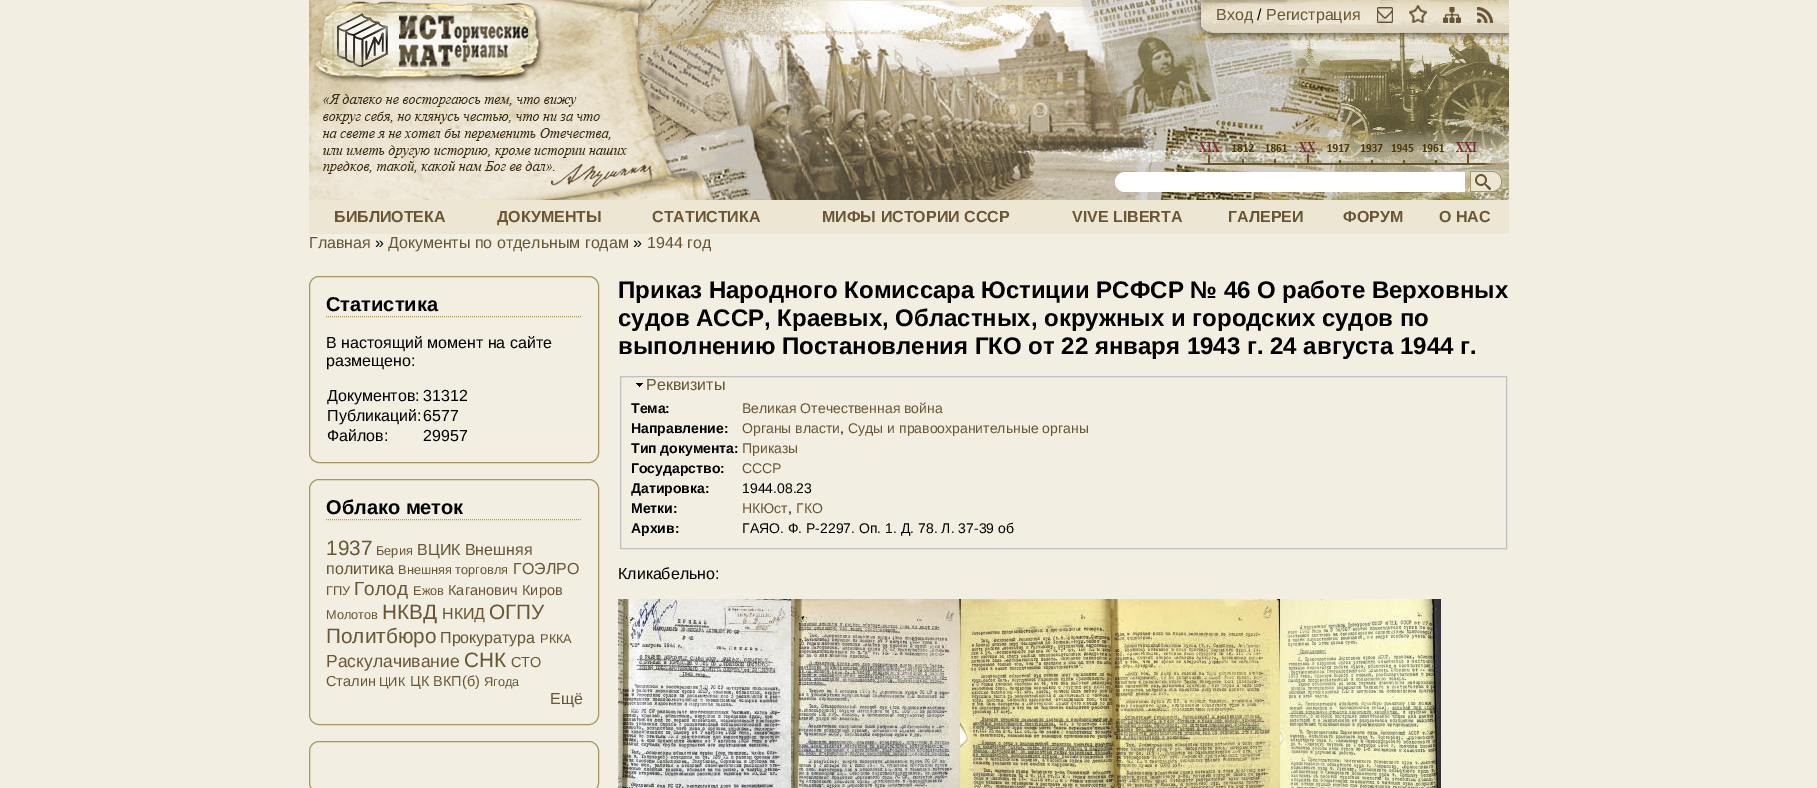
%!PS
<< /PageSize [1817 788] >> setpagedevice
/rgb { 3 { 255 div 3 1 roll } repeat setrgbcolor } def
/font { [ exch dup neg 0 0 3 -1 roll 0 0 ] selectfont } def
/roundrect { 5 dict begin { /r /h /w /y /x } { exch def } forall
  x r add y moveto x w add y 2 copy h add r arct x w add y h add x 1 index r arct
  x y h add x y r arct x y 2 copy exch w add exch r arct closepath end } def
/picture { 5 dict begin { /h /w /y /x /name } { exch def } forall
  gsave x y translate w h scale
  w h 8 [w 0 0 h 0 0] name (r) file false 3 colorimage grestore end } def
0 788 translate 1 -1 scale
4 setmiterlimit
242 238 225 rgb
0 0 1817 788 rectfill
(img/1.rgb) 636 0 873 200 picture
(img/2.rgb) 309 0 407 200 picture
(img/3.rgb) 314 1 231 83 picture
(img/4.rgb) 1194 0 315 40 picture
(img/5.rgb) 1377 7 16 16 picture
(img/6.rgb) 1409 5 18 18 picture
(img/7.rgb) 1443 7 18 16 picture
(img/8.rgb) 1477 7 16 16 picture
255 255 255 rgb
1125 172 moveto 1465 172 lineto 1465 192 lineto 1125 192 lineto 1119.5 192 1115 187.5 1115 182 curveto 1115 176.5 1119.5 172 1125 172 curveto closepath fill
(img/9.rgb) 1470 171 32 21 picture
237 230 211 rgb
309 200 1200 34 rectfill
168 150 100 rgb
309.5 276.5 289 186 9.5 roundrect stroke
[1 1] 0 setdash
326 316.5 moveto 582 316.5 lineto stroke
[] 0 setdash
309.5 479.5 289 245 9.5 roundrect stroke
[1 1] 0 setdash
326 519.5 moveto 582 519.5 lineto stroke
[] 0 setdash
309.5 741.5 289 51 9.5 roundrect stroke
192 192 192 rgb
620.5 376.5 886 172 rectstroke
(img/10.rgb) 636 383 7 4 picture
(img/11.rgb) 618 599 173 189 picture
(img/12.rgb) 791 599 169 189 picture
(img/13.rgb) 960 599 154 189 picture
(img/14.rgb) 1114 599 166 189 picture
(img/15.rgb) 1280 599 161 189 picture
/LiberationSans-Regular 16 font
104 86 53 rgb
1216 20 moveto (Вход) show
0 0 0 rgb
1257 20 moveto (/) show
104 86 53 rgb
1266 20 moveto (Регистрация) show
/LiberationSans-Bold 16 font
[
  [(БИБЛИОТЕКА) 334 222]
  [(ДОКУМЕНТЫ) 497 222]
  [(СТАТИСТИКА) 652 222]
  [(МИФЫ ИСТОРИИ СССР) 822 222]
  [(VIVE LIBERTA) 1072 222]
  [(ГАЛЕРЕИ) 1228 222]
  [(ФОРУМ) 1343 222]
  [(О НАС) 1439 222]
] { aload pop moveto show } forall
/LiberationSans-Regular 16 font
309 248 moveto (Главная) show
0 0 0 rgb
375 248 moveto (») show
104 86 53 rgb
388 248 moveto (Документы по отдельным годам) show
0 0 0 rgb
633 248 moveto (») show
104 86 53 rgb
647 248 moveto (1944 год) show
/LiberationSans-Bold 20 font
0 0 0 rgb
326 311 moveto (Статистика) show
/LiberationSans-Regular 16 font
[
  [(В настоящий момент на сайте) 326 348]
  [(размещено:) 326 366]
  [(Документов:) 327 401]
  [(31312) 423 401]
  [(Публикаций:) 327 421]
  [(6577) 423 421]
  [(Файлов:) 327 441]
  [(29957) 423 441]
] { aload pop moveto show } forall
/LiberationSans-Bold 20 font
326 514 moveto (Облако меток) show
/LiberationSans-Regular 20.75 font
104 86 53 rgb
326 555 moveto (1937) show
/LiberationSans-Regular 12.75 font
376 555 moveto (Берия) show
/LiberationSans-Regular 16 font
417 555 moveto (ВЦИК Внешняя) show
326 574 moveto (политика) show
/LiberationSans-Regular 12.75 font
398 574 moveto (Внешняя торговля) show
/LiberationSans-Regular 16 font
513 574 moveto (ГОЭЛРО) show
/LiberationSans-Regular 12.75 font
326 595 moveto (ГПУ) show
/LiberationSans-Regular 19 font
354 595 moveto (Голод) show
/LiberationSans-Regular 12.75 font
413 595 moveto (Ежов) show
/LiberationSans-Regular 14.5 font
448 595 moveto (Каганович) show
522 595 moveto (Киров) show
/LiberationSans-Regular 12.75 font
326 619 moveto (Молотов) show
/LiberationSans-Regular 20.75 font
382 619 moveto (НКВД) show
/LiberationSans-Regular 16 font
442 619 moveto (НКИД) show
/LiberationSans-Regular 20.75 font
489 619 moveto (ОГПУ) show
326 643 moveto (Политбюро) show
/LiberationSans-Regular 16 font
440 643 moveto (Прокуратура) show
/LiberationSans-Regular 12.75 font
540 643 moveto (РККА) show
/LiberationSans-Regular 17.5 font
326 667 moveto (Раскулачивание) show
/LiberationSans-Regular 20.75 font
464 667 moveto (СНК) show
/LiberationSans-Regular 14.5 font
511 667 moveto (СТО) show
326 686 moveto (Сталин) show
/LiberationSans-Regular 12.75 font
379 686 moveto (ЦИК) show
/LiberationSans-Regular 14.5 font
410 686 moveto (ЦК ВКП\(б\)) show
/LiberationSans-Regular 12.75 font
484 686 moveto (Ягода) show
/LiberationSans-Regular 16 font
550 704 moveto (Ещё) show
/LiberationSans-Bold 24 font
0 0 0 rgb
[
  [(Приказ Народного Комиссара Юстиции РСФСР № 46 О работе Верховных) 618 298]
  [(судов АССР, Краевых, Областных, окружных и городских судов по) 618 326]
  [(выполнению Постановления ГКО от 22 января 1943 г. 24 августа 1944 г.) 618 354]
] { aload pop moveto show } forall
/LiberationSans-Regular 16 font
104 86 53 rgb
646 390 moveto (Реквизиты) show
/LiberationSans-Bold 14 font
0 0 0 rgb
631 413 moveto (Тема:) show
/LiberationSans-Regular 14 font
104 86 53 rgb
742 413 moveto (Великая Отечественная война) show
/LiberationSans-Bold 14 font
0 0 0 rgb
631 433 moveto (Направление:) show
/LiberationSans-Regular 14 font
104 86 53 rgb
742 433 moveto (Органы власти) show
0 0 0 rgb
840 433 moveto (,) show
104 86 53 rgb
848 433 moveto (Суды и правоохранительные органы) show
/LiberationSans-Bold 14 font
0 0 0 rgb
631 453 moveto (Тип документа:) show
/LiberationSans-Regular 14 font
104 86 53 rgb
742 453 moveto (Приказы) show
/LiberationSans-Bold 14 font
0 0 0 rgb
631 473 moveto (Государство:) show
/LiberationSans-Regular 14 font
104 86 53 rgb
742 473 moveto (СССР) show
/LiberationSans-Bold 14 font
0 0 0 rgb
631 493 moveto (Датировка:) show
/LiberationSans-Regular 14 font
742 493 moveto (1944.08.23) show
/LiberationSans-Bold 14 font
631 513 moveto (Метки:) show
/LiberationSans-Regular 14 font
104 86 53 rgb
742 513 moveto (НКЮст) show
0 0 0 rgb
788 513 moveto (,) show
104 86 53 rgb
796 513 moveto (ГКО) show
/LiberationSans-Bold 14 font
0 0 0 rgb
631 533 moveto (Архив:) show
/LiberationSans-Regular 14 font
742 533 moveto (ГАЯО. Ф. Р-2297. Оп. 1. Д. 78. Л. 37-39 об) show
/LiberationSans-Regular 16 font
618 579 moveto (Кликабельно:) show
showpage
